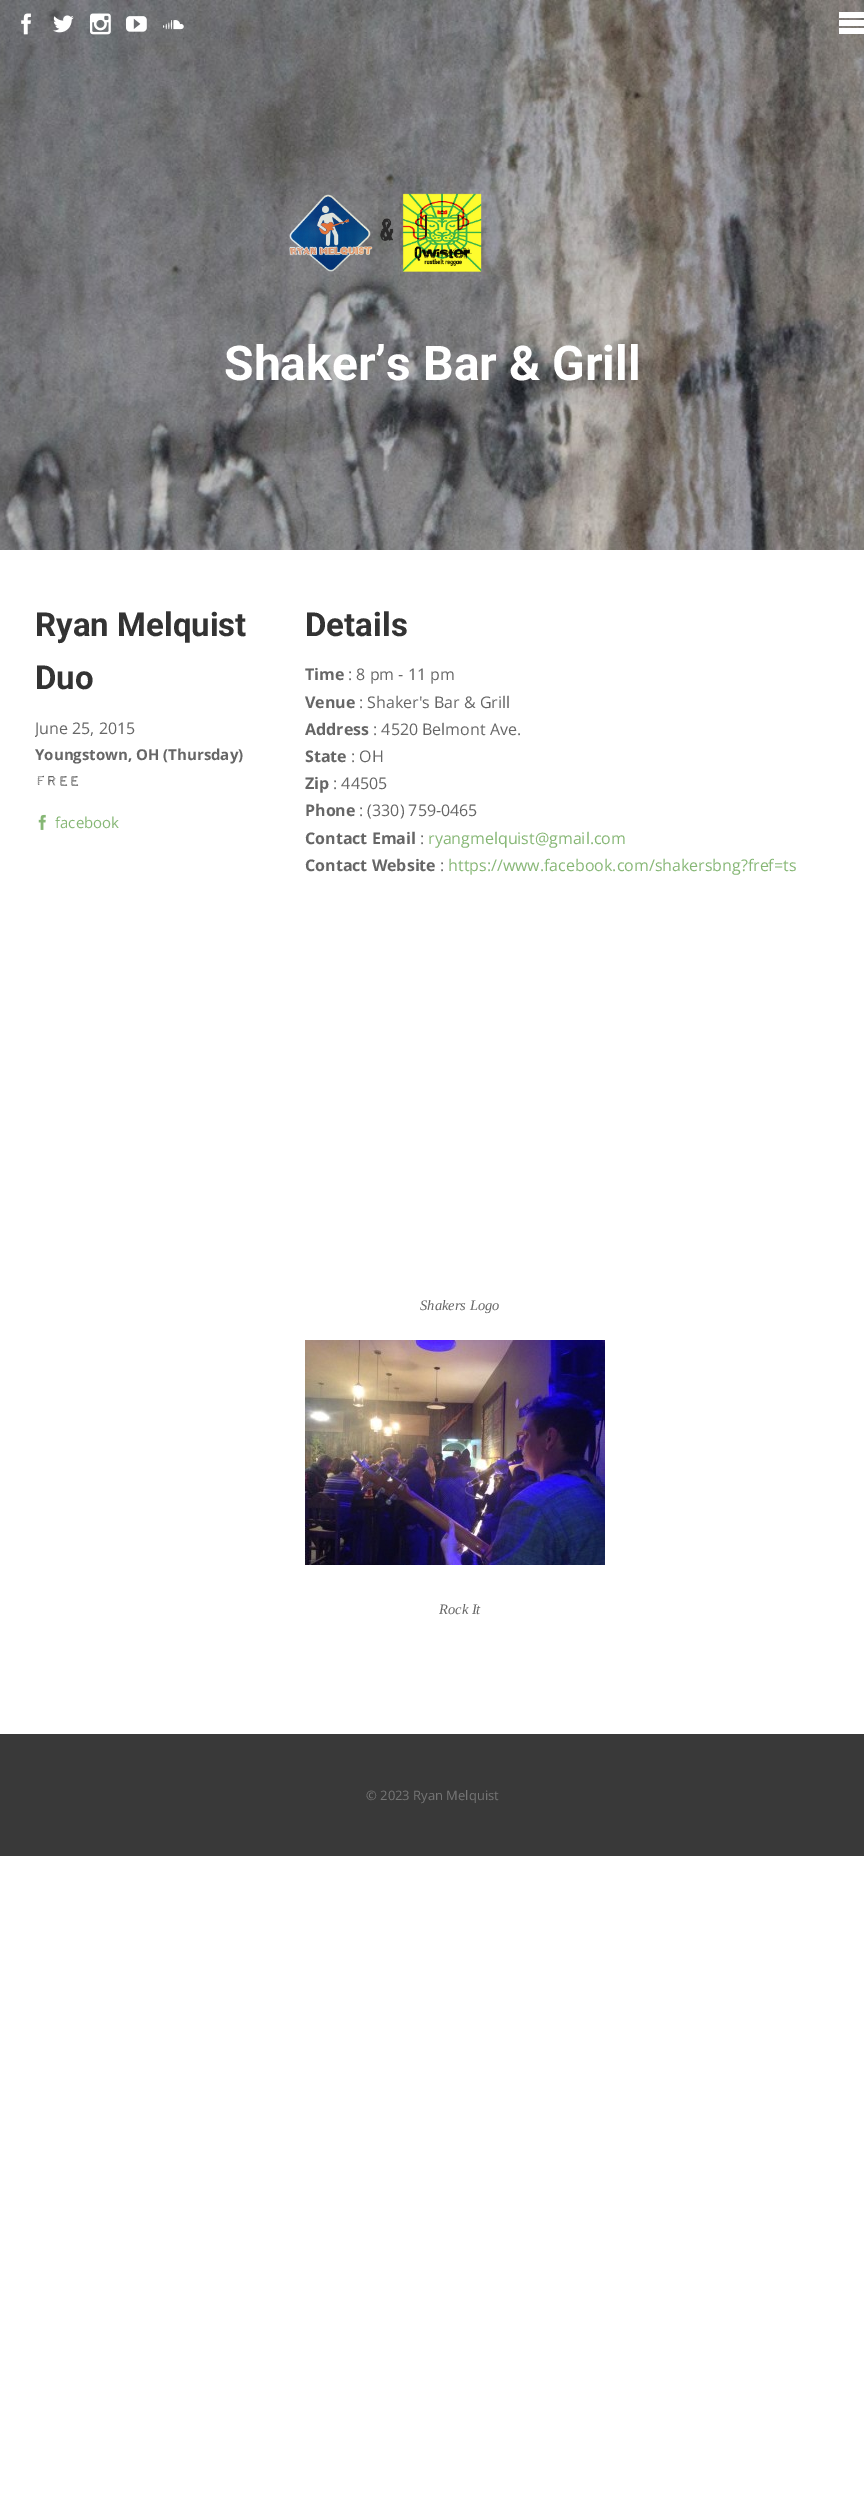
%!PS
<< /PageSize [864 2512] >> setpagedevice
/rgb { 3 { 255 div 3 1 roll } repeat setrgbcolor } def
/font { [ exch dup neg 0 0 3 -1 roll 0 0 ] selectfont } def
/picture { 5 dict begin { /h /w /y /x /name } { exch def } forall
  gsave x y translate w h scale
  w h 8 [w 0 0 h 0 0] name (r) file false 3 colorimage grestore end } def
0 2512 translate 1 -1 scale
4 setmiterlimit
255 255 255 rgb
0 0 864 2512 rectfill
(img/2.rgb) 0 0 864 550 picture
(img/1.rgb) 839 12 25 22 picture
(img/3.rgb) 21 13 10 22 picture
(img/4.rgb) 53 15 21 18 picture
(img/5.rgb) 90 13 21 22 picture
(img/6.rgb) 126 16 21 16 picture
(img/7.rgb) 163 20 21 10 picture
(img/8.rgb) 289 193 193 79 picture
(img/9.rgb) 38 814 8 16 picture
(img/10.rgb) 305 1340 300 225 picture
57 57 57 rgb
0 1734 864 122 rectfill
/Roboto-Bold 48 font
255 255 255 rgb
224 380 moveto (Shaker’s Bar & Grill) show
/Roboto-Bold 33 font
51 51 51 rgb
35 636 moveto (Ryan Melquist) show
35 689 moveto (Duo) show
gsave
35 598 794 1076 rectclip
/OpenSans-Regular 16 font
102 102 102 rgb
35 734 moveto (June 25, 2015) show
grestore
/OpenSans-Bold 15 font
102 102 102 rgb
35 760 moveto (Youngstown, OH \(Thursday\)) show
/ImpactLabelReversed-Regular 19 font
35 786 moveto (Free) show
/OpenSans-Regular 15 font
134 183 117 rgb
55 828 moveto (facebook) show
/Roboto-Bold 33 font
51 51 51 rgb
305 636 moveto (Details) show
/OpenSans-Bold 16 font
102 102 102 rgb
305 680 moveto (Time) show
/OpenSans-Regular 16 font
348 680 moveto (: 8 pm - 11 pm) show
/OpenSans-Bold 16 font
305 708 moveto (Venue) show
/OpenSans-Regular 16 font
359 708 moveto (: Shaker's Bar & Grill) show
/OpenSans-Bold 16 font
305 735 moveto (Address) show
/OpenSans-Regular 16 font
373 735 moveto (: 4520 Belmont Ave.) show
/OpenSans-Bold 16 font
305 762 moveto (State) show
/OpenSans-Regular 16 font
351 762 moveto (: OH) show
/OpenSans-Bold 16 font
305 789 moveto (Zip) show
/OpenSans-Regular 16 font
333 789 moveto (: 44505) show
/OpenSans-Bold 16 font
305 816 moveto (Phone) show
/OpenSans-Regular 16 font
359 816 moveto (: \(330\) 759-0465) show
/OpenSans-Bold 16 font
305 844 moveto (Contact Email) show
/OpenSans-Regular 16 font
420 844 moveto (:) show
134 183 117 rgb
428 844 moveto (ryangmelquist@gmail.com) show
/OpenSans-Bold 16 font
102 102 102 rgb
305 871 moveto (Contact Website) show
/OpenSans-Regular 16 font
440 871 moveto (:) show
134 183 117 rgb
448 871 moveto (https://www.facebook.com/shakersbng?fref=ts) show
/LiberationSerif-Italic 14.5 font
102 102 102 rgb
420 1310 moveto (Shakers Logo) show
439 1614 moveto (Rock It) show
/OpenSans-Regular 13 font
118 118 118 rgb
366 1800 moveto (© 2023 Ryan Melquist) show
showpage
